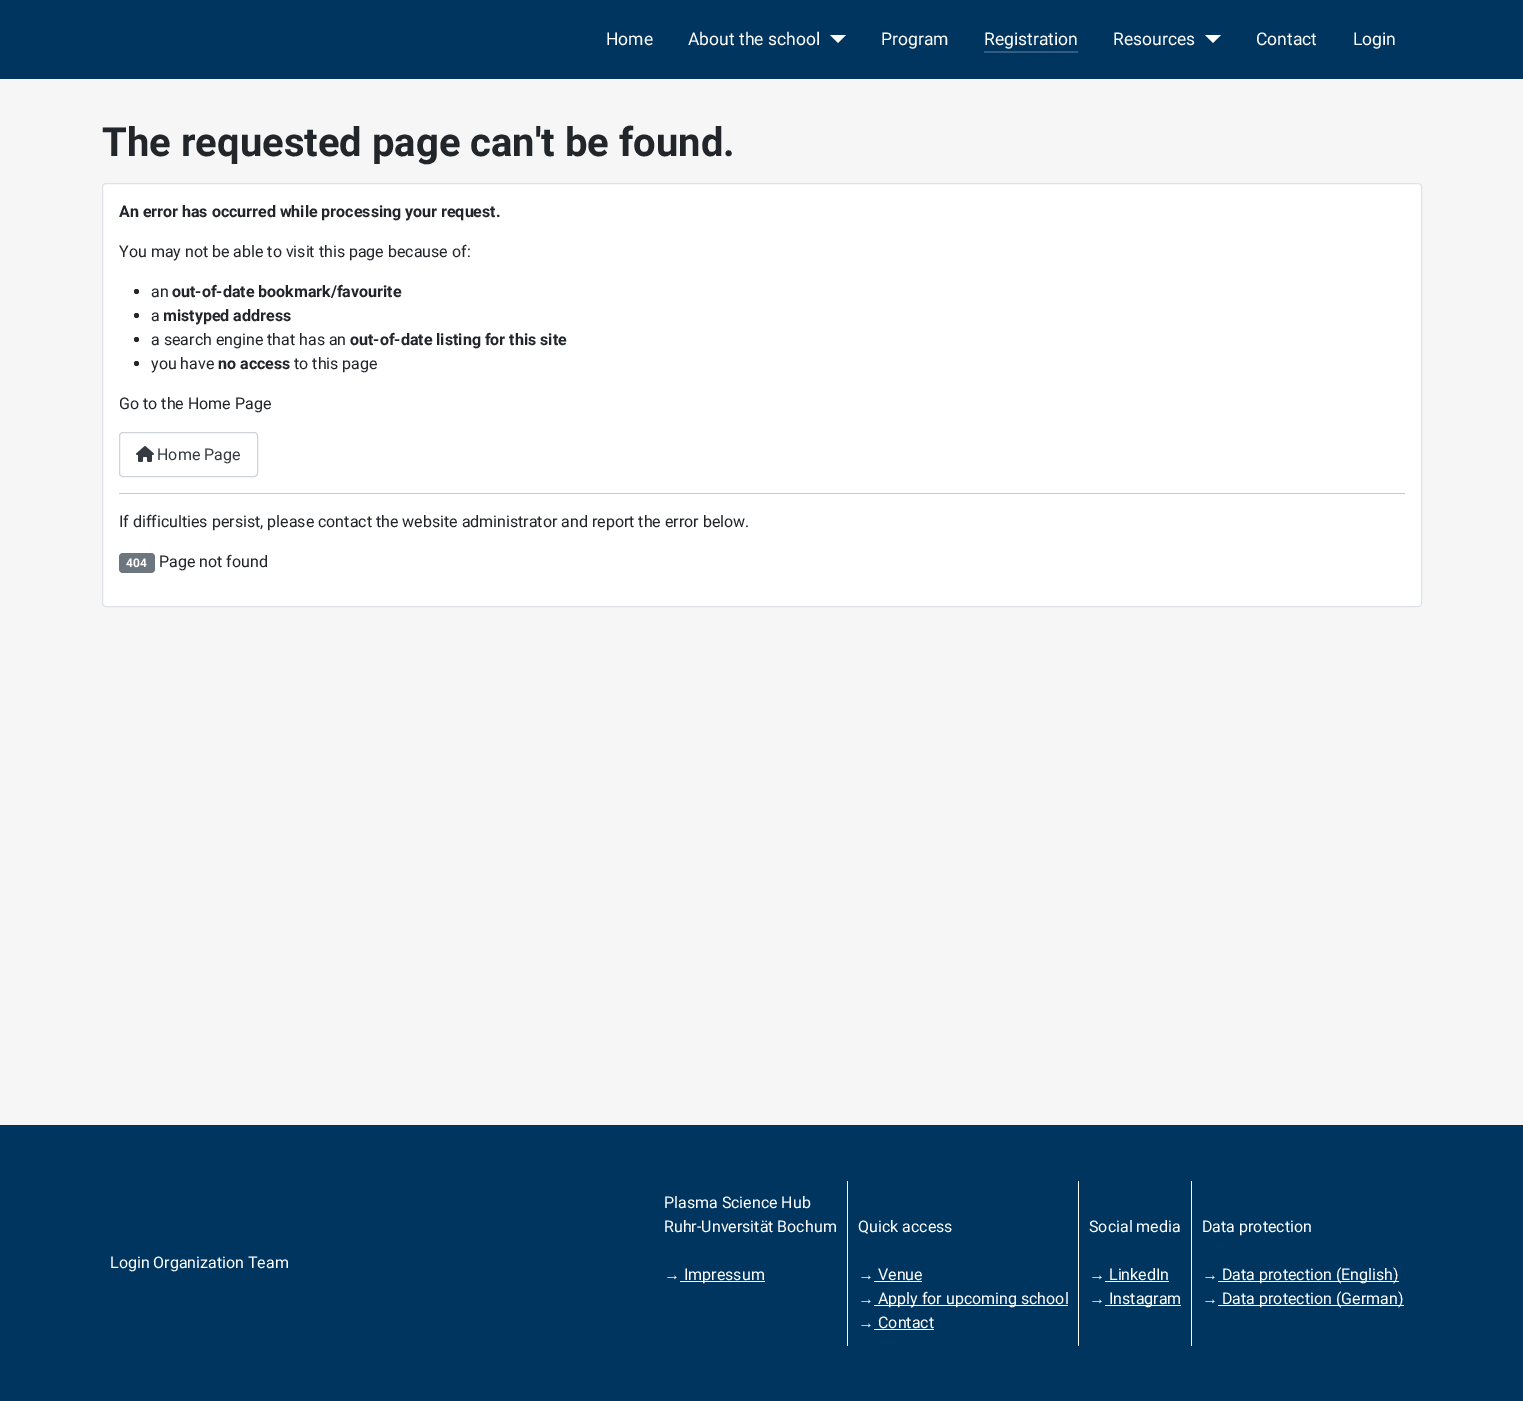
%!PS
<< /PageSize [1523 1401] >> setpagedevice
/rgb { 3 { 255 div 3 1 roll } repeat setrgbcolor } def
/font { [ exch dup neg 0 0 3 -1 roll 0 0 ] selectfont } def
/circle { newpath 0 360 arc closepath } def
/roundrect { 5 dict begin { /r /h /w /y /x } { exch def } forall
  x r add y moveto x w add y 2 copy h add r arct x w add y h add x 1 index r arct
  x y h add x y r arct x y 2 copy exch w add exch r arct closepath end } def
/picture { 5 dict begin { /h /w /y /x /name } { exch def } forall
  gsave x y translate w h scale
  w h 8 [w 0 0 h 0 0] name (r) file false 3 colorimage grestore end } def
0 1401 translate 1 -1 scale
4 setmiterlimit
246 246 246 rgb
0 0 1523 1401 rectfill
0 53 96 rgb
0 0 1523 79 rectfill
255 255 255 rgb
830 35 moveto 846 35 lineto 838 43 lineto closepath fill
51 93 128 rgb
984 51 94 2 rectfill
255 255 255 rgb
1205 35 moveto 1221 35 lineto 1213 43 lineto closepath fill
102.5 183.5 1319 423 3.5 roundrect gsave fill grestore
223 227 231 rgb
stroke
34 38 42 rgb
136.5 291.5 2.5 circle fill
136.5 315.5 2.5 circle fill
136.5 339.5 2.5 circle fill
136.5 363.5 2.5 circle fill
206 212 218 rgb
119.5 432.5 138 44 3.5 roundrect stroke
(img/1.rgb) 136 446 18 16 picture
200 201 202 rgb
119 493 1286 1 rectfill
109 117 126 rgb
119 553 36 20 4 roundrect fill
[
  [0 1125 1523 276 0 53 96]
  [680 1281 85 1 255 255 255]
  [847 1181 1 165 255 255 255]
  [874 1281 48 1 255 255 255]
  [874 1305 194 1 255 255 255]
  [874 1329 60 1 255 255 255]
  [1078 1181 1 165 255 255 255]
  [1105 1281 64 1 255 255 255]
  [1105 1305 76 1 255 255 255]
  [1191 1181 1 165 255 255 255]
  [1218 1281 181 1 255 255 255]
  [1218 1305 186 1 255 255 255]
] { aload pop rgb rectfill } forall
/Roboto-Regular 17.5 font
[
  [(Home) 606 45]
  [(About the school) 688 45]
  [(Program) 881 45]
  [(Registration) 984 45]
  [(Resources) 1113 45]
  [(Contact) 1256 45]
  [(Login) 1353 45]
] { aload pop moveto show } forall
/Roboto-Bold 40 font
34 38 42 rgb
102 156 moveto (The requested page can't be found.) show
/Roboto-Bold 16 font
119 217 moveto (An error has occurred while processing your request.) show
/Roboto-Regular 16 font
119 257 moveto (You may not be able to visit this page because of:) show
151 297 moveto (an) show
/Roboto-Bold 16 font
172 297 moveto (out-of-date bookmark/favourite) show
/Roboto-Regular 16 font
151 321 moveto (a) show
/Roboto-Bold 16 font
163 321 moveto (mistyped address) show
/Roboto-Regular 16 font
151 345 moveto (a search engine that has an) show
/Roboto-Bold 16 font
350 345 moveto (out-of-date listing for this site) show
/Roboto-Regular 16 font
151 369 moveto (you have) show
/Roboto-Bold 16 font
218 369 moveto (no access) show
/Roboto-Regular 16 font
294 369 moveto (to this page) show
119 409 moveto (Go to the Home Page) show
53 59 65 rgb
157 460 moveto (Home Page) show
34 38 42 rgb
119 527 moveto (If difficulties persist, please contact the website administrator and report the error below.) show
/Roboto-Bold 12 font
255 255 255 rgb
126 567 moveto (404) show
/Roboto-Regular 16 font
34 38 42 rgb
159 567 moveto (Page not found) show
255 255 255 rgb
[
  [(Login Organization Team) 110 1268]
  [(Plasma Science Hub) 664 1208]
  [(Ruhr-Unversität Bochum) 664 1232]
] { aload pop moveto show } forall
/LiberationSans-Regular 16 font
664 1280 moveto (→) show
/Roboto-Regular 16 font
684 1280 moveto (Impressum) show
858 1232 moveto (Quick access) show
/LiberationSans-Regular 16 font
858 1280 moveto (→) show
/Roboto-Regular 16 font
878 1280 moveto (Venue) show
/LiberationSans-Regular 16 font
858 1304 moveto (→) show
/Roboto-Regular 16 font
878 1304 moveto (Apply for upcoming school) show
/LiberationSans-Regular 16 font
858 1328 moveto (→) show
/Roboto-Regular 16 font
878 1328 moveto (Contact) show
1089 1232 moveto (Social media) show
/LiberationSans-Regular 16 font
1089 1280 moveto (→) show
/Roboto-Regular 16 font
1109 1280 moveto (LinkedIn) show
/LiberationSans-Regular 16 font
1089 1304 moveto (→) show
/Roboto-Regular 16 font
1109 1304 moveto (Instagram) show
1202 1232 moveto (Data protection) show
/LiberationSans-Regular 16 font
1202 1280 moveto (→) show
/Roboto-Regular 16 font
1222 1280 moveto (Data protection \(English\)) show
/LiberationSans-Regular 16 font
1202 1304 moveto (→) show
/Roboto-Regular 16 font
1222 1304 moveto (Data protection \(German\)) show
showpage
